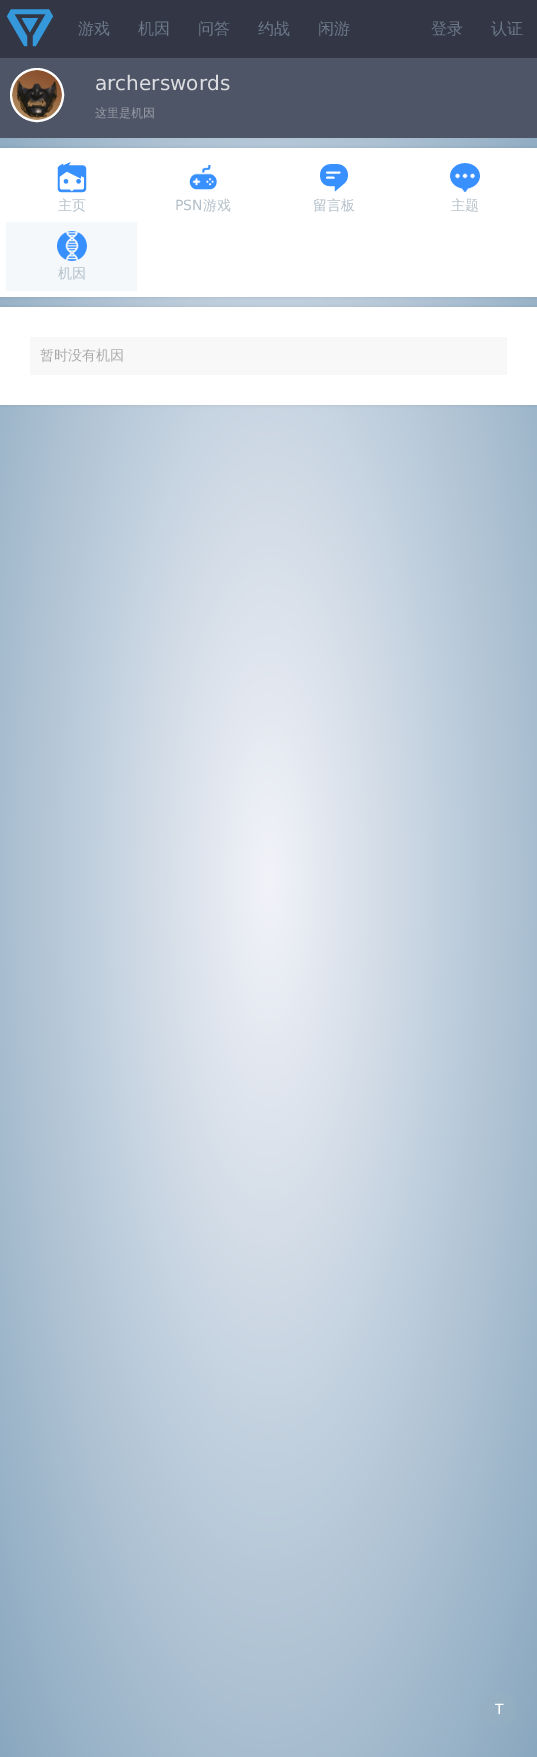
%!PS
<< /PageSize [537 1757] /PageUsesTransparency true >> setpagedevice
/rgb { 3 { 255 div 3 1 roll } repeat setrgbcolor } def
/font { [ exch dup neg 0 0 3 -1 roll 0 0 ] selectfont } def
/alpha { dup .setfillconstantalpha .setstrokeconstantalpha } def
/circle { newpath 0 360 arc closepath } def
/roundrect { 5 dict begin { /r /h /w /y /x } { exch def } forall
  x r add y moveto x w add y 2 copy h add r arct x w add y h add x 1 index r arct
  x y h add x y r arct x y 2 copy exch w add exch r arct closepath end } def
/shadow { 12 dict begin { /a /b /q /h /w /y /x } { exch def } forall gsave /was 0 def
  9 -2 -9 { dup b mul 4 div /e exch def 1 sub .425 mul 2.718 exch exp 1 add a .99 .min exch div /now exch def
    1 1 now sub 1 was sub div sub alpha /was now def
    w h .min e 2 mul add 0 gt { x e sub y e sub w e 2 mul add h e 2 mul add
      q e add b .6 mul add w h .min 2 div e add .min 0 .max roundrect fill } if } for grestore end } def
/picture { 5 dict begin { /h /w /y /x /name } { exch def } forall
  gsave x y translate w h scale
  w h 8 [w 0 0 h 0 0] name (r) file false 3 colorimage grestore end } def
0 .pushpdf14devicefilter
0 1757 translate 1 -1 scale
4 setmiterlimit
255 255 255 rgb
0 0 537 1757 rectfill
gsave 0 138 moveto 537 138 lineto 537 1757 lineto 0 1757 lineto closepath clip newpath 269 879 translate 380 1242 scale
<< /ShadingType 3 /ColorSpace /DeviceRGB /Coords [0 0 0 0 0 1] /Extend [true true] /Function << /FunctionType 2 /Domain [0 1] /C0 [0.949 0.953 0.976] /C1 [0.537 0.655 0.749] /N 1 >> >> shfill grestore
51 54 69 rgb
0 0 537 58 rectfill
(img/1.rgb) 6 9 48 38 picture
78 85 102 rgb
0 58 537 80 rectfill
255 255 255 rgb
37 95 26 circle gsave fill grestore
2 setlinewidth
stroke
(img/2.rgb) 12 70 50 50 picture
0 0 0 rgb
0 148 537 149 0 1.5 0.1 shadow
255 255 255 rgb
0 148 537 149 rectfill
(img/3.rgb) 57 162 30 31 picture
(img/4.rgb) 189 165 28 25 picture
(img/5.rgb) 320 164 28 28 picture
(img/6.rgb) 450 163 30 29 picture
244 248 250 rgb
6 222 131 69 rectfill
(img/7.rgb) 57 231 30 30 picture
0 0 0 rgb
0 307 537 98 0 1.5 0.1 shadow
255 255 255 rgb
0 307 537 98 rectfill
248 248 248 rgb
30 337 477 38 rectfill
0.3 alpha
153 174 188 rgb
499 1709 18 circle fill
/WenQuanYiZenHei-Medium 16 font
1 alpha
107 121 137 rgb
[
  [(游戏) 78 34]
  [(机因) 138 34]
  [(问答) 198 34]
  [(约战) 258 34]
  [(闲游) 318 34]
  [(登录) 431 34]
  [(认证) 491 34]
] { aload pop moveto show } forall
/DejaVuSans-Regular 20 font
220 221 224 rgb
95 90 moveto (archerswords) show
/WenQuanYiZenHei-Medium 12 font
149 153 163 rgb
95 117 moveto (这里是机因) show
/WenQuanYiZenHei-Medium 14 font
178 191 201 rgb
58 210 moveto (主页) show
/DejaVuSans-Regular 14 font
175 210 moveto (PSN) show
/WenQuanYiZenHei-Medium 14 font
[
  [(游戏) 203 210]
  [(留言板) 313 210]
  [(主题) 451 210]
  [(机因) 58 278]
] { aload pop moveto show } forall
170 170 170 rgb
40 360 moveto (暂时没有机因) show
/DejaVuSans-Regular 14 font
255 255 255 rgb
495 1714 moveto (T) show
.poppdf14devicefilter showpage
